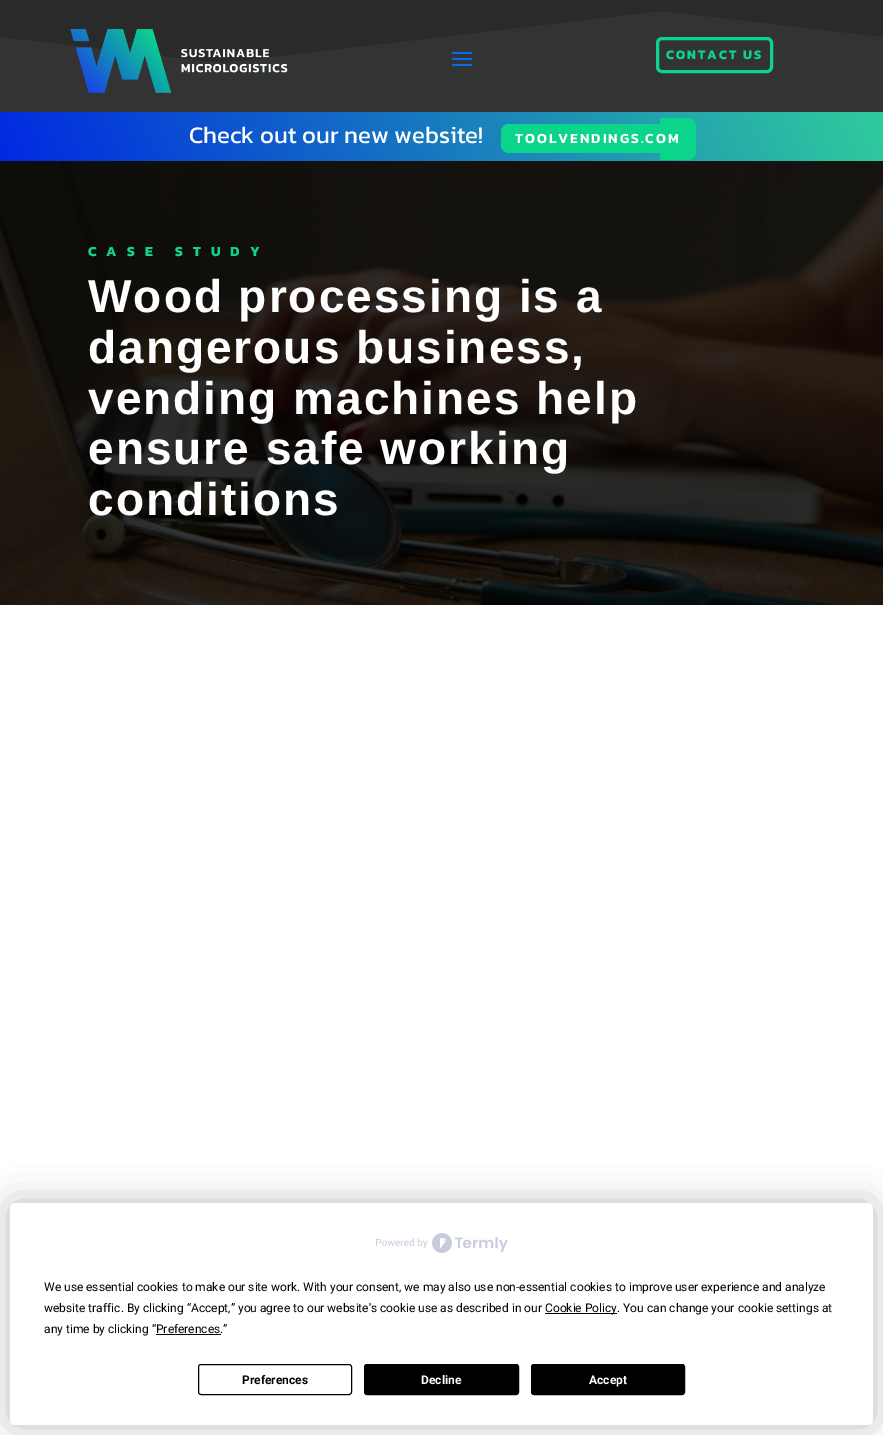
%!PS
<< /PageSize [883 1435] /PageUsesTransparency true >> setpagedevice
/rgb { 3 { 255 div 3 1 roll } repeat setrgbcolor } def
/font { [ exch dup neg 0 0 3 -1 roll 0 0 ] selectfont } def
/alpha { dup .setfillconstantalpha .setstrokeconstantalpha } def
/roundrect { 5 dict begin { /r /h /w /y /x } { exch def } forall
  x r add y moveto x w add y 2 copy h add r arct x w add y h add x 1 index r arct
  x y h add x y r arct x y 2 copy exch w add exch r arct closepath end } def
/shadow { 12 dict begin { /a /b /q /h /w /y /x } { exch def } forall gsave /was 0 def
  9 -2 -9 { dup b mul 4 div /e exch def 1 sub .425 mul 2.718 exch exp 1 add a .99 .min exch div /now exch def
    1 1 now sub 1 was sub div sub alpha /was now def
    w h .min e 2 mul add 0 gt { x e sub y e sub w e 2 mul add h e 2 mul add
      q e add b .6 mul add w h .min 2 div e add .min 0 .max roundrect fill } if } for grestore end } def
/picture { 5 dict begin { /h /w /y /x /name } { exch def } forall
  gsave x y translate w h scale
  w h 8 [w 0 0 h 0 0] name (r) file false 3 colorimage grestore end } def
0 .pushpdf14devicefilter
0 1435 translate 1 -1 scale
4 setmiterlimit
255 255 255 rgb
0 0 883 1435 rectfill
51 51 51 rgb
0 11 883 101 rectfill
42 42 42 rgb
0 37 moveto 221 63 lineto 662 11 lineto 883 37 lineto 883 0 lineto 0 0 lineto closepath fill
(img/1.rgb) 70 29 218 64 picture
(img/2.rgb) 452 51 20 15 picture
11 212 139 rgb
3 setlinewidth
657.5 38.5 114 33 4.5 roundrect stroke
gsave 0 112 moveto 883 112 lineto 883 161 lineto 0 161 lineto closepath clip newpath
<< /ShadingType 2 /ColorSpace /DeviceRGB /Coords [69 310 814 -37] /Extend [true true] /Function << /FunctionType 2 /Domain [0 1] /C0 [0 0.161 0.886] /C1 [0.188 0.8 0.612] /N 1 >> >> shfill grestore
509 124 moveto 680 124 lineto 680 153 lineto 509 153 lineto 504.5 153 501 149.5 501 145 curveto 501 132 lineto 501 127.5 504.5 124 509 124 curveto closepath fill
660 118 moveto 688 118 lineto 692.5 118 696 121.5 696 126 curveto 696 152 lineto 696 156.5 692.5 160 688 160 curveto 660 160 lineto closepath fill
(img/3.rgb) 0 161 883 444 picture
0 0 0 rgb
10 1203 863 222 5 17.5 0.25 shadow
255 255 255 rgb
10 1203 863 222 5 roundrect fill
(img/4.rgb) 376 1233 132 20 picture
0 0 0 rgb
545 1313 72 1 rectfill
156 1334 65 1 rectfill
1 setlinewidth
198.5 1364.5 153 30 2.5 roundrect stroke
364.5 1364.5 154 30 2.5 roundrect gsave fill grestore
stroke
531.5 1364.5 153 30 2.5 roundrect gsave fill grestore
stroke
/Kanit-Bold 13 font
11 212 139 rgb
666 59 moveto 2 0 (CONTACT US) ashow
/Kanit-Regular 24 font
255 255 255 rgb
189 143 moveto (Check out our new website!) show
/Kanit-SemiBold 14 font
515 143 moveto 2 0 (TOOLVENDINGS.COM) ashow
/Kanit-Bold 14 font
11 212 139 rgb
88 256 moveto 10 0 (CASE STUDY) ashow
/LiberationSans-Bold 46 font
255 255 255 rgb
88 312 moveto 2 0 (Wood processing is a) ashow
88 363 moveto 2 0 (dangerous business,) ashow
88 414 moveto 2 0 (vending machines help) ashow
88 464 moveto 2 0 (ensure safe working) ashow
88 515 moveto 2 0 (conditions) ashow
/Roboto-Regular 12 font
0 0 0 rgb
[
  [(We use essential cookies to make our site work. With your consent, we may also use non-essential cookies to improve user experience and analyze) 44 1291]
  [(website traffic. By clicking “Accept,” you agree to our website's cookie use as described in our) 44 1312]
  [(Cookie Policy. You can change your cookie settings at) 545 1312]
  [(any time by clicking “Preferences.”) 44 1333]
] { aload pop moveto show } forall
/Roboto-Bold 12 font
242 1384 moveto (Preferences) show
255 255 255 rgb
421 1384 moveto (Decline) show
589 1384 moveto (Accept) show
.poppdf14devicefilter showpage
